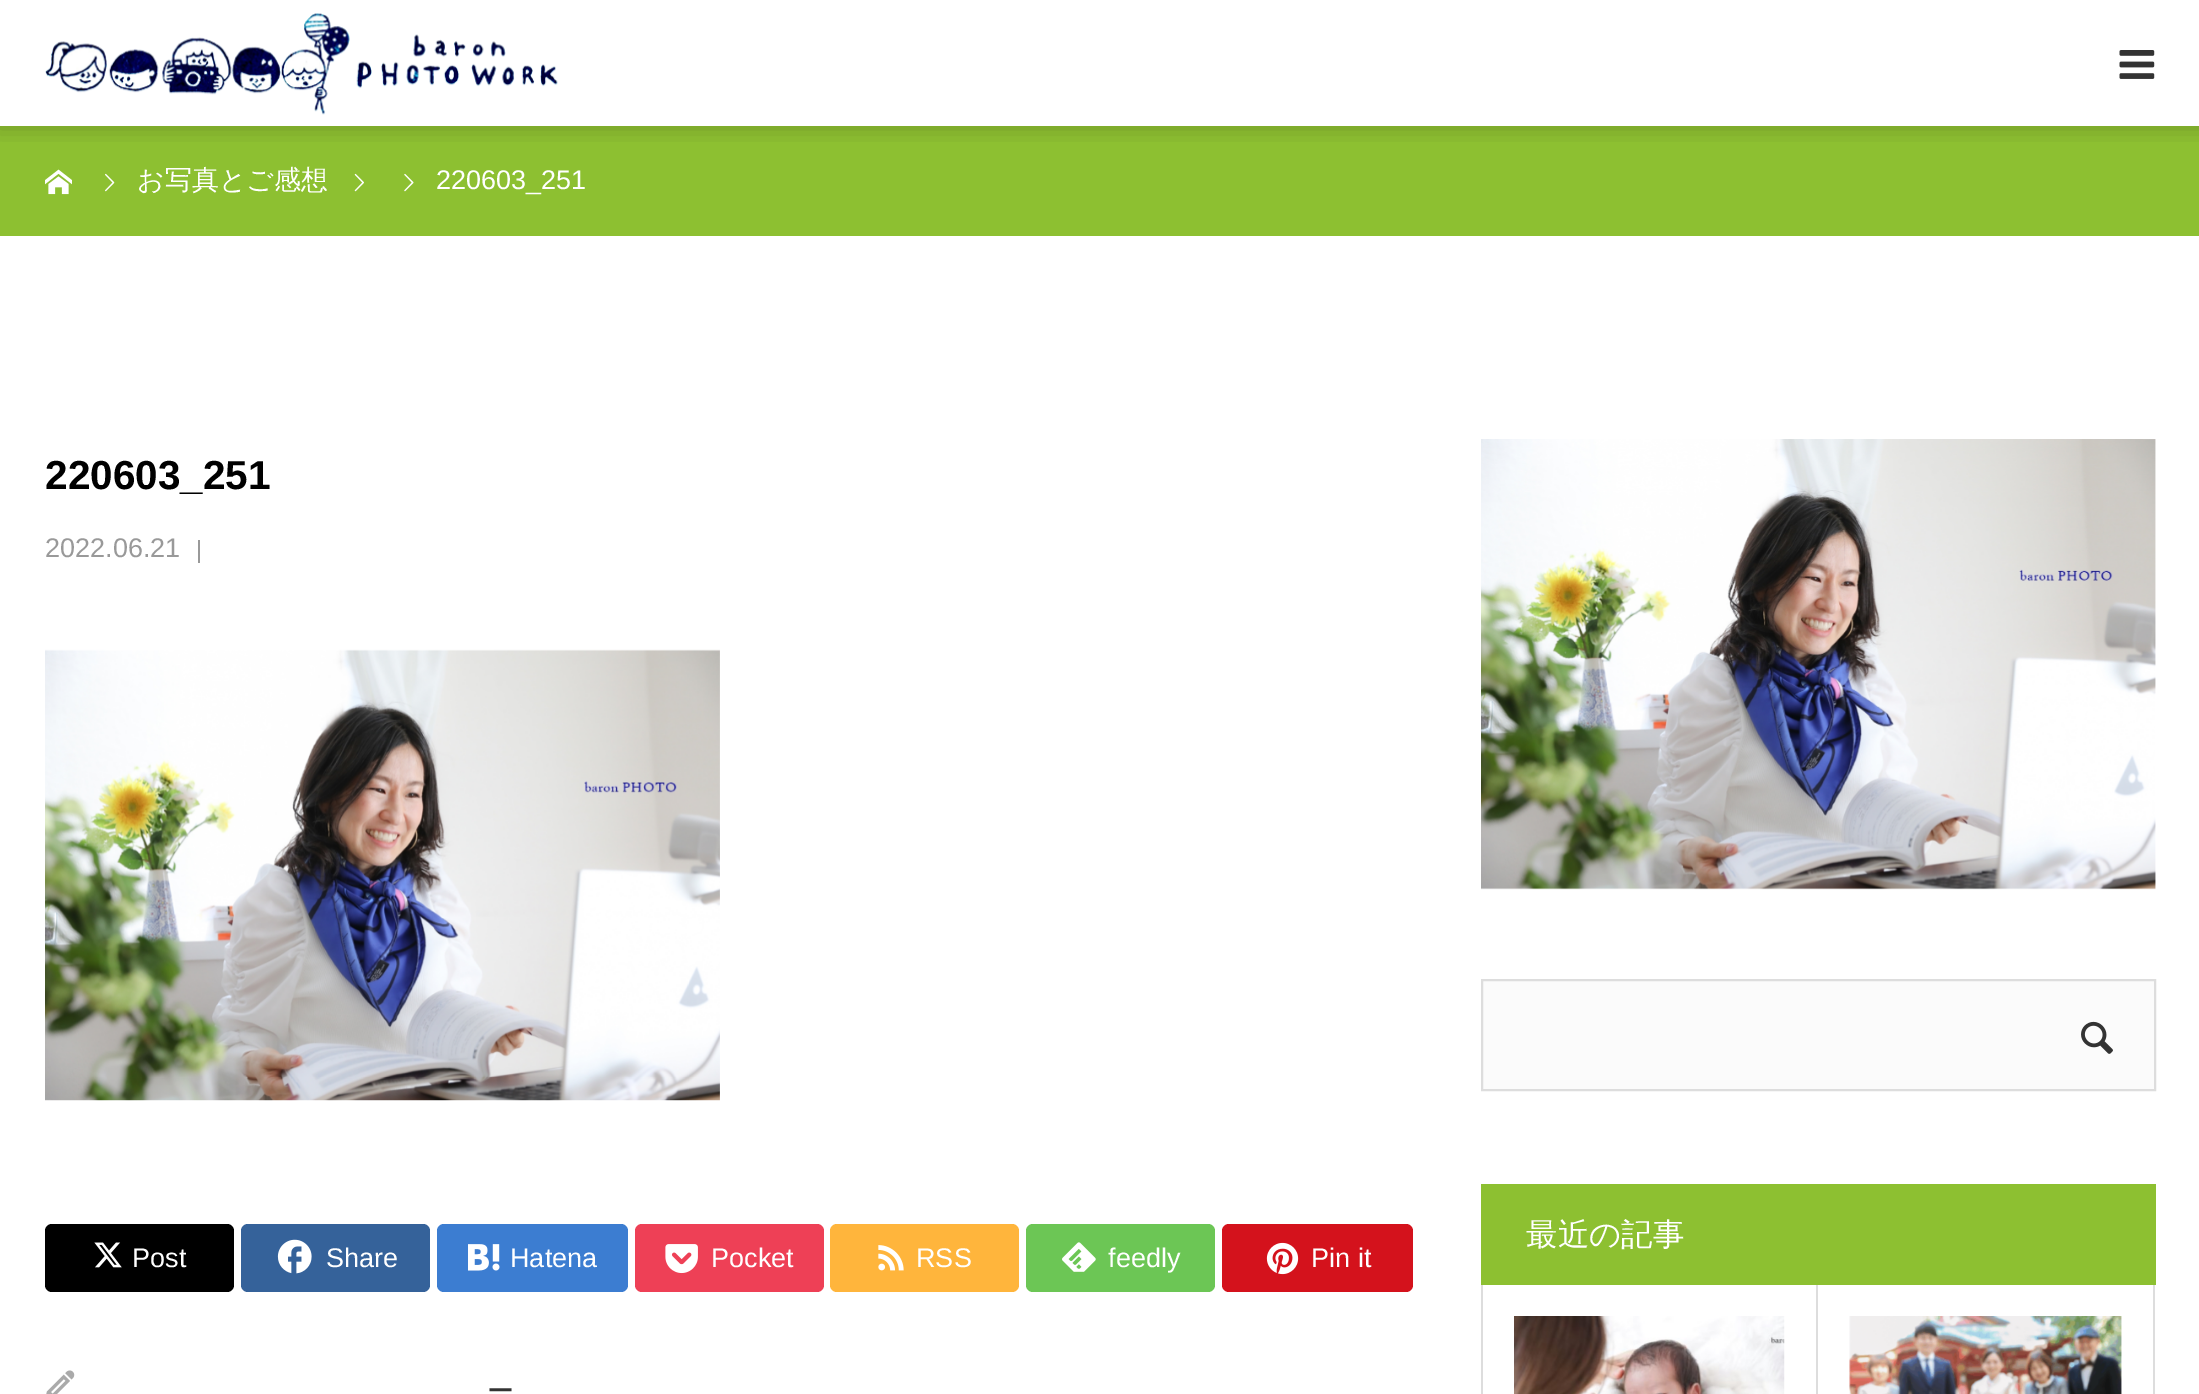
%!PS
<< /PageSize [2199 1394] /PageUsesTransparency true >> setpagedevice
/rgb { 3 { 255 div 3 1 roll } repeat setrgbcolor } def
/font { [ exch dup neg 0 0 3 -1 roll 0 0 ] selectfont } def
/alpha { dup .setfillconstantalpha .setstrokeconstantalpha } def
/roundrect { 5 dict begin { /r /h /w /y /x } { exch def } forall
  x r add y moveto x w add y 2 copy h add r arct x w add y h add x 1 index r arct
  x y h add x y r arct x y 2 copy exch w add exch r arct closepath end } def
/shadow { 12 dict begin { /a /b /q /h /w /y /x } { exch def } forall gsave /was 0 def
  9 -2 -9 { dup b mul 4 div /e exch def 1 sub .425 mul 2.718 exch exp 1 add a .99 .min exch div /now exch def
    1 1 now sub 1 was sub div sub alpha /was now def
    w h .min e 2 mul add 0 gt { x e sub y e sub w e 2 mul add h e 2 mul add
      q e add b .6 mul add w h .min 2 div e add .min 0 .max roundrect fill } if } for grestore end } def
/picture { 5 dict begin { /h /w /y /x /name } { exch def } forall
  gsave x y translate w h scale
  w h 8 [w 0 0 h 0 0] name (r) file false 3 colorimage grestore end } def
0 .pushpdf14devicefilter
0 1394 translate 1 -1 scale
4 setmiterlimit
255 255 255 rgb
0 0 2199 1394 rectfill
141 192 49 rgb
0 126 2199 110 rectfill
gsave
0 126 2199 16 rectclip
0 0 0 rgb
-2 -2 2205 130 0 11 0.2 shadow
grestore
(img/1.rgb) 45 13 513 102 picture
(img/2.rgb) 2119 50 36 29 picture
(img/3.rgb) 45 169 27 26 picture
(img/4.rgb) 105 173 10 19 picture
(img/5.rgb) 354 173 10 19 picture
(img/6.rgb) 404 173 10 19 picture
153 153 153 rgb
198 540 2 23 rectfill
(img/7.rgb) 45 649 675 452 picture
0 0 0 rgb
45 1224 189 68 7 roundrect fill
(img/8.rgb) 94 1242 28 26 picture
53 98 154 rgb
241 1224 189 68 7 roundrect fill
(img/9.rgb) 277 1239 35 35 picture
60 125 209 rgb
437 1224 191 68 7 roundrect fill
(img/10.rgb) 468 1244 32 27 picture
238 64 86 rgb
635 1224 189 68 7 roundrect fill
(img/11.rgb) 665 1244 33 30 picture
255 181 60 rgb
830 1224 189 68 7 roundrect fill
(img/12.rgb) 878 1245 26 26 picture
108 198 85 rgb
1026 1224 189 68 7 roundrect fill
(img/13.rgb) 1062 1242 34 30 picture
212 18 28 rgb
1222 1224 191 68 7 roundrect fill
(img/14.rgb) 1266 1242 33 33 picture
(img/15.rgb) 46 1370 29 24 picture
(img/16.rgb) 1481 439 675 451 picture
251 251 251 rgb
1482 980 moveto 2155 980 lineto 2155 1090 lineto 1482 1090 lineto closepath gsave fill grestore
221 221 221 rgb
2 setlinewidth
stroke
(img/17.rgb) 2081 1021 32 33 picture
[
  [1481 1184 675 101 141 192 49]
  [2153 1285 2 109 221 221 221]
  [1481 1285 2 109 221 221 221]
  [1816 1285 2 109 221 221 221]
] { aload pop rgb rectfill } forall
(img/18.rgb) 1514 1316 271 78 picture
(img/19.rgb) 1849 1316 273 78 picture
/WenQuanYiZenHei-Medium 27 font
255 255 255 rgb
137 189 moveto (お写真とご感想) show
/LiberationSans-Regular 27 font
436 189 moveto (220603_251) show
/LiberationSans-Bold 40.5 font
0 0 0 rgb
45 489 moveto (220603_251) show
/LiberationSans-Regular 27 font
153 153 153 rgb
45 557 moveto (2022.06.21) show
255 255 255 rgb
[
  [(Post) 132 1267]
  [(Share) 326 1267]
  [(Hatena) 510 1267]
  [(Pocket) 711 1267]
  [(RSS) 916 1267]
  [(feedly) 1108 1267]
  [(Pin it) 1311 1267]
] { aload pop moveto show } forall
/WenQuanYiZenHei-Medium 27 font
51 51 51 rgb
487 1400 moveto (ー) show
/WenQuanYiZenHei-Medium 31.5 font
255 255 255 rgb
1526 1245 moveto (最近の記事) show
.poppdf14devicefilter showpage
